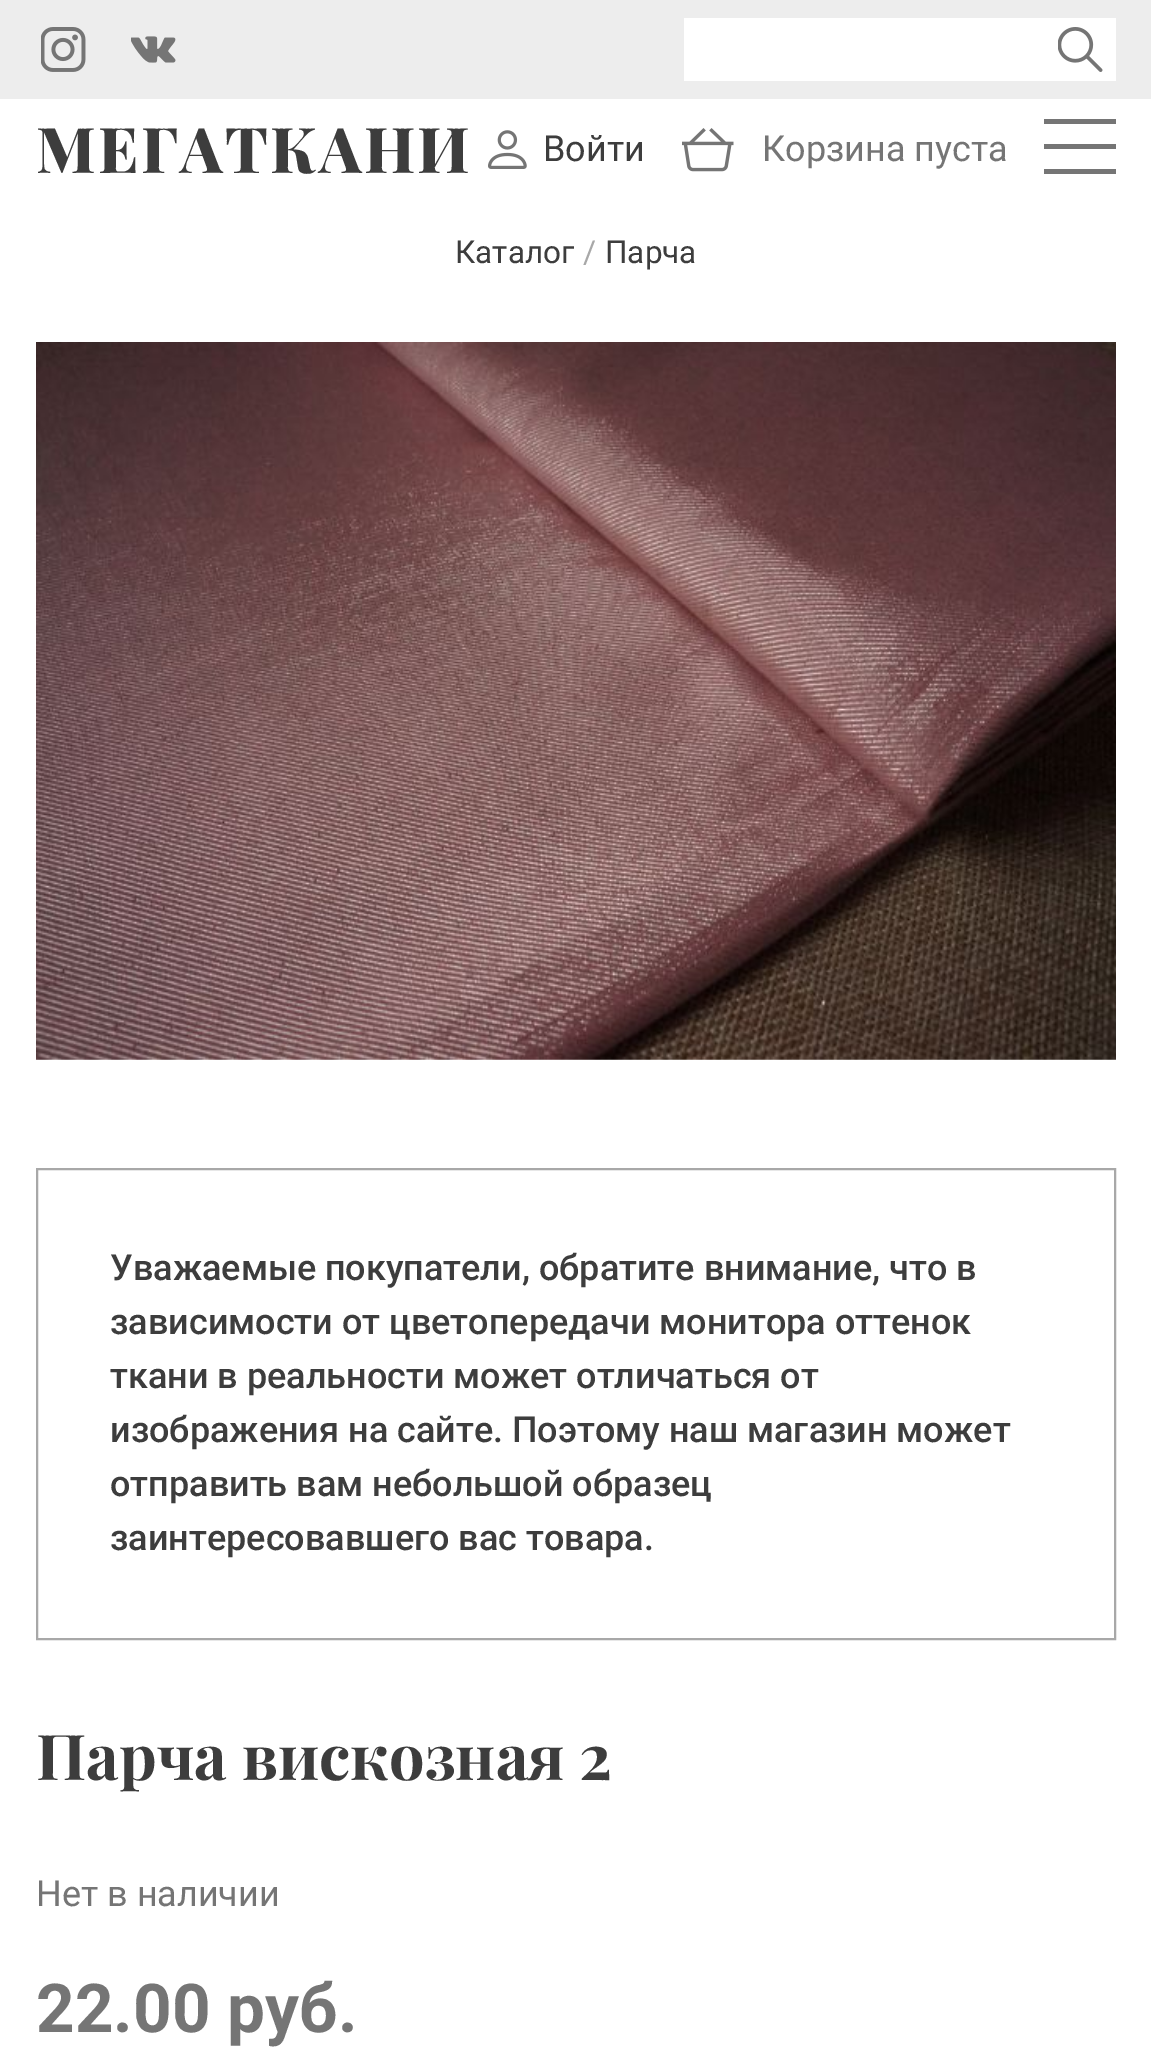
%!PS
<< /PageSize [1151 2064] >> setpagedevice
/rgb { 3 { 255 div 3 1 roll } repeat setrgbcolor } def
/font { [ exch dup neg 0 0 3 -1 roll 0 0 ] selectfont } def
/picture { 5 dict begin { /h /w /y /x /name } { exch def } forall
  gsave x y translate w h scale
  w h 8 [w 0 0 h 0 0] name (r) file false 3 colorimage grestore end } def
0 2064 translate 1 -1 scale
4 setmiterlimit
255 255 255 rgb
0 0 1151 2064 rectfill
237 237 237 rgb
0 0 1151 99 rectfill
(img/1.rgb) 41 27 45 45 picture
(img/2.rgb) 131 36 45 27 picture
255 255 255 rgb
684 18 432 63 rectfill
(img/3.rgb) 1058 27 45 45 picture
(img/4.rgb) 488 130 39 39 picture
(img/5.rgb) 682 128 52 44 picture
[
  [1044 119 72 5 117 117 117]
  [1044 144 72 5 117 117 117]
  [1044 169 72 5 117 117 117]
] { aload pop rgb rectfill } forall
(img/6.rgb) 36 342 1080 718 picture
168 168 168 rgb
2 setlinewidth
37 1169 1078 470 rectstroke
/PlayfairDisplay-ExtraBold 63 font
61 61 61 rgb
36 173 moveto 2.25 0 (МЕГАТКАНИ) ashow
/Roboto-Regular 36 font
543 161 moveto (Войти) show
117 117 117 rgb
762 161 moveto (Корзина пуста) show
/Roboto-Regular 31.5 font
61 61 61 rgb
455 263 moveto (Каталог) show
168 168 168 rgb
583 263 moveto (/) show
61 61 61 rgb
605 263 moveto (Парча) show
/Roboto-Medium 36 font
[
  [(Уважаемые покупатели, обратите внимание, что в) 110 1280]
  [(зависимости от цветопередачи монитора оттенок) 110 1334]
  [(ткани в реальности может отличаться от) 110 1388]
  [(изображения на сайте. Поэтому наш магазин может) 110 1442]
  [(отправить вам небольшой образец) 110 1496]
  [(заинтересовавшего вас товара.) 110 1550]
] { aload pop moveto show } forall
/PlayfairDisplay-Bold 63 font
36 1780 moveto (Парча вискозная 2) show
/Roboto-Regular 36 font
117 117 117 rgb
36 1906 moveto (Нет в наличии) show
/Roboto-Bold 67.5 font
36 2032 moveto (22.00 руб.) show
showpage
